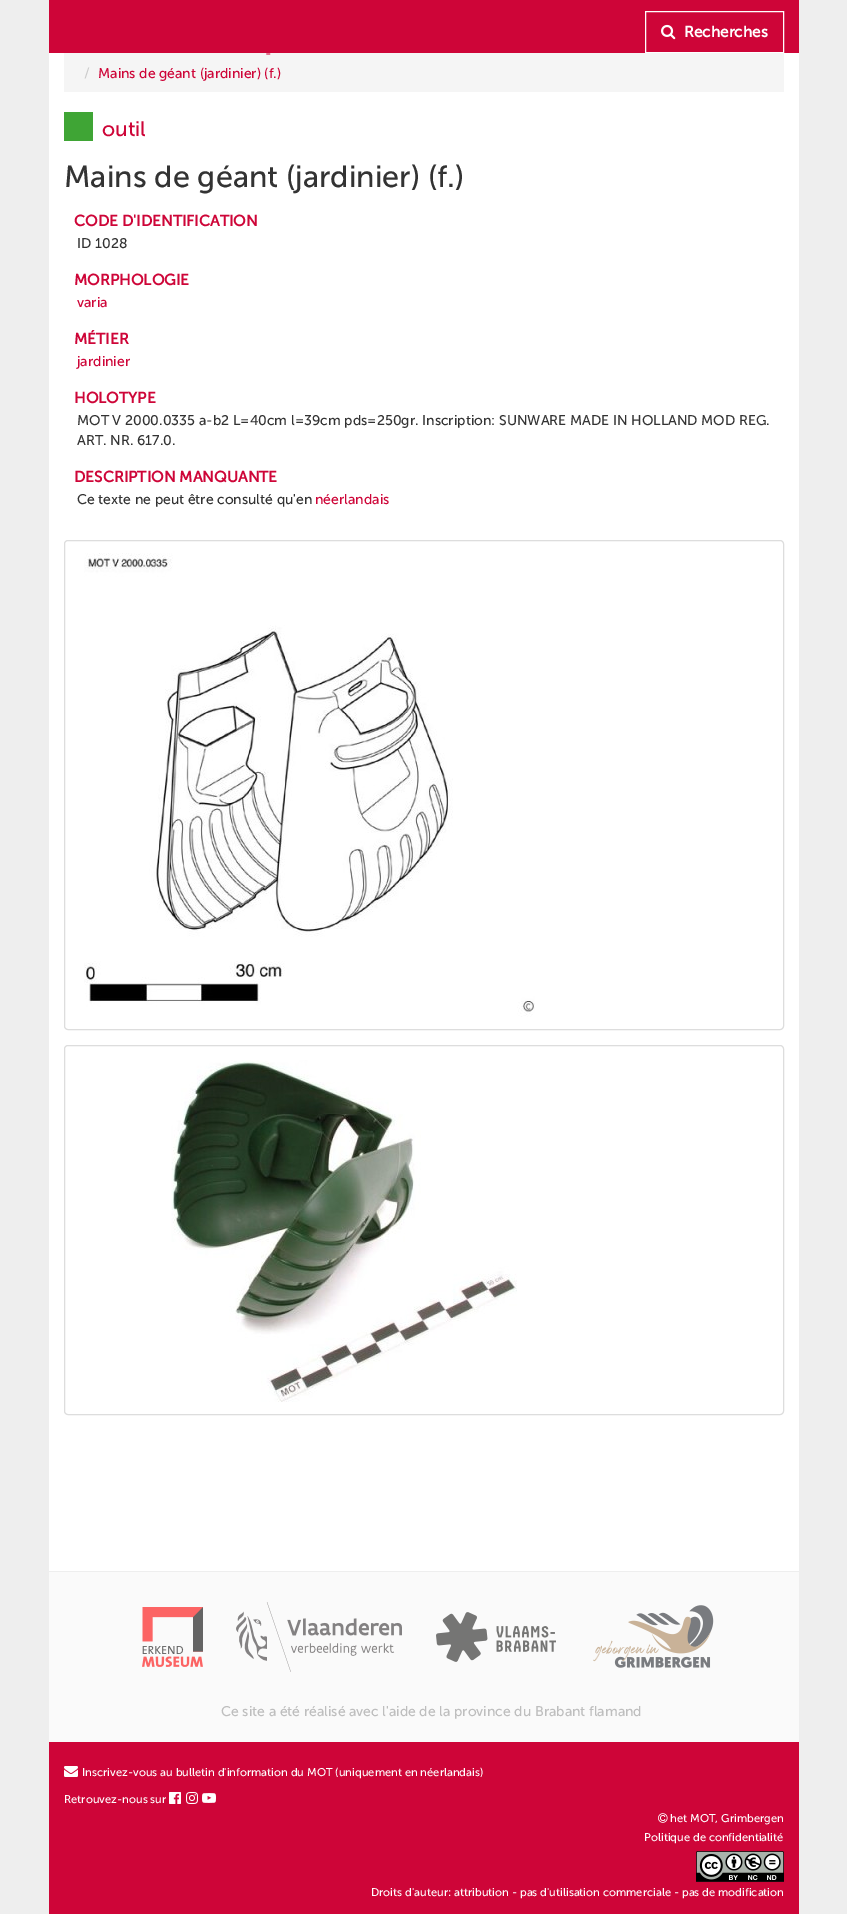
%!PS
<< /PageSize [847 1914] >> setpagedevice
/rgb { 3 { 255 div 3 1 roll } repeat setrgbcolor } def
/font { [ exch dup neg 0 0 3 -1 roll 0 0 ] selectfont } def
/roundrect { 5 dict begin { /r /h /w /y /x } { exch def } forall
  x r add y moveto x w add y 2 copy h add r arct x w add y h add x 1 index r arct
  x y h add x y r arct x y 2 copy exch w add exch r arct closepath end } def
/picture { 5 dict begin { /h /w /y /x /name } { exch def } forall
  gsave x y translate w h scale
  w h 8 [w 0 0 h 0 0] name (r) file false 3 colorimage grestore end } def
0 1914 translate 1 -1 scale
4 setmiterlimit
238 238 238 rgb
0 0 847 1914 rectfill
255 255 255 rgb
49 53 750 1518 rectfill
206 5 56 rgb
49 0 750 53 rectfill
255 255 255 rgb
645.5 11.5 138 41 rectstroke
(img/1.rgb) 661 24 15 16 picture
245 245 245 rgb
64 53 720 39 rectfill
63 165 53 rgb
64 112 29 29 rectfill
221 221 221 rgb
64.5 540.5 719 489 3.5 roundrect stroke
(img/2.rgb) 84 553 451 464 picture
64.5 1045.5 719 369 3.5 roundrect stroke
(img/3.rgb) 171 1060 346 342 picture
250 250 250 rgb
49 1572 750 170 rectfill
(img/4.rgb) 142 1607 61 60 picture
(img/5.rgb) 236 1602 166 70 picture
(img/6.rgb) 436 1612 120 50 picture
(img/7.rgb) 593 1605 121 63 picture
206 5 56 rgb
49 1742 750 172 rectfill
(img/8.rgb) 64 1766 14 11 picture
(img/9.rgb) 169 1792 12 12 picture
(img/10.rgb) 186 1792 12 12 picture
(img/11.rgb) 202 1793 14 10 picture
(img/12.rgb) 658 1813 10 10 picture
(img/13.rgb) 696 1851 88 31 picture
/MuseoSans-Bold 15.4 font
255 255 255 rgb
684 37 moveto (Recherches) show
/MuseoSans-Regular 14 font
206 5 56 rgb
265 58 moveto (-) show
204 204 204 rgb
84 78 moveto (/) show
206 5 56 rgb
98 78 moveto (Mains de géant \(jardinier\) \(f.\)) show
/MuseoSans-Regular 21 font
102 136 moveto (outil) show
/MuseoSans-Regular 30.6 font
51 51 51 rgb
64 187 moveto (Mains de géant \(jardinier\) \(f.\)) show
/MuseoSans-Bold 15.4 font
206 5 56 rgb
74 226 moveto (CODE D'IDENTIFICATION) show
/MuseoSans-Regular 14 font
51 51 51 rgb
77 248 moveto (ID 1028) show
/MuseoSans-Bold 15.4 font
206 5 56 rgb
74 285 moveto (MORPHOLOGIE) show
/MuseoSans-Regular 14 font
77 307 moveto (varia) show
/MuseoSans-Bold 15.4 font
74 344 moveto (MÉTIER) show
/MuseoSans-Regular 14 font
77 366 moveto (jardinier) show
/MuseoSans-Bold 15.4 font
74 403 moveto (HOLOTYPE) show
/MuseoSans-Regular 14 font
51 51 51 rgb
77 425 moveto (MOT V 2000.0335 a-b2 L=40cm l=39cm pds=250gr. Inscription: SUNWARE MADE IN HOLLAND MOD REG.) show
77 445 moveto (ART. NR. 617.0.) show
/MuseoSans-Bold 15.4 font
206 5 56 rgb
74 482 moveto (DESCRIPTION MANQUANTE) show
/MuseoSans-Regular 14 font
51 51 51 rgb
77 504 moveto (Ce texte ne peut être consulté qu'en) show
206 5 56 rgb
315 504 moveto (néerlandais) show
190 190 190 rgb
221 1716 moveto (Ce site a été réalisé avec l'aide de la province du Brabant flamand) show
/MuseoSans-Regular 11.2 font
255 255 255 rgb
[
  [(Inscrivez-vous au bulletin d'information du MOT \(uniquement en néerlandais\)) 82 1776]
  [(Retrouvez-nous sur) 64 1803]
  [(het MOT, Grimbergen) 670 1822]
  [(Politique de confidentialité) 644 1841]
  [(Droits d'auteur: attribution - pas d'utilisation commerciale - pas de modification) 371 1896]
] { aload pop moveto show } forall
showpage
